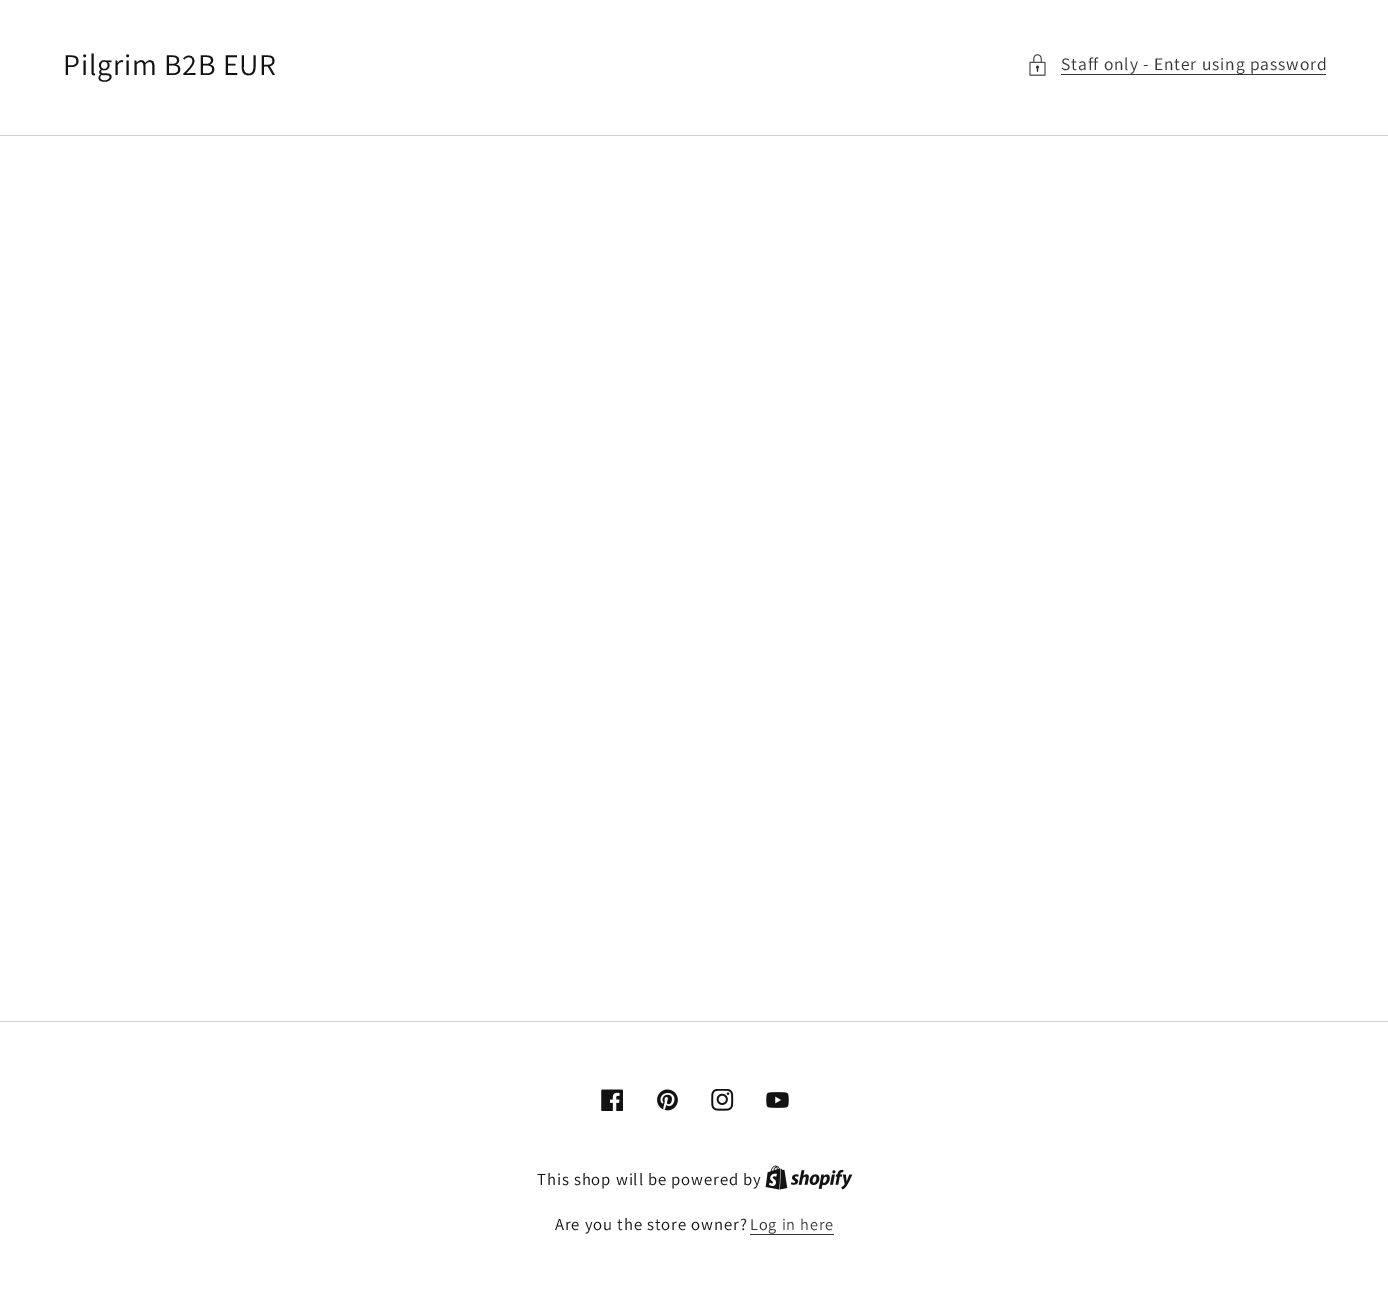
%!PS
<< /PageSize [1388 1289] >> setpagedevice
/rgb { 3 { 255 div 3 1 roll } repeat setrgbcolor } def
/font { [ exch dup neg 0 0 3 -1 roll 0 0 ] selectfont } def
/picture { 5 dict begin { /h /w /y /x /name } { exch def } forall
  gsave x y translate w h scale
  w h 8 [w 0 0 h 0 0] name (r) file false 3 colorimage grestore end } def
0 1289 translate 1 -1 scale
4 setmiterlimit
255 255 255 rgb
0 0 1388 1289 rectfill
(img/1.rgb) 1029 54 17 22 picture
[
  [1061 74 265 1 54 54 54]
  [0 135 1388 1 208 208 208]
  [0 1021 1388 1 208 208 208]
] { aload pop rgb rectfill } forall
(img/2.rgb) 601 1089 22 22 picture
(img/3.rgb) 657 1089 21 22 picture
(img/4.rgb) 711 1089 23 22 picture
(img/5.rgb) 766 1092 23 16 picture
(img/6.rgb) 765 1165 88 25 picture
54 54 54 rgb
750 1234 84 1 rectfill
/Assistant-Regular 30 font
18 18 18 rgb
63 75 moveto 0.75 0 (Pilgrim B2B EUR) ashow
/Assistant-Regular 17.5 font
54 54 54 rgb
1061 70 moveto 0.9 0 (Staff only - Enter using password) ashow
/Assistant-Regular 16.7 font
18 18 18 rgb
537 1185 moveto 0.9 0 (This shop will be powered by) ashow
555 1230 moveto 0.9 0 (Are you the store owner?) ashow
/Assistant-Regular 16.25 font
54 54 54 rgb
750 1230 moveto 0.9 0 (Log in here) ashow
showpage
